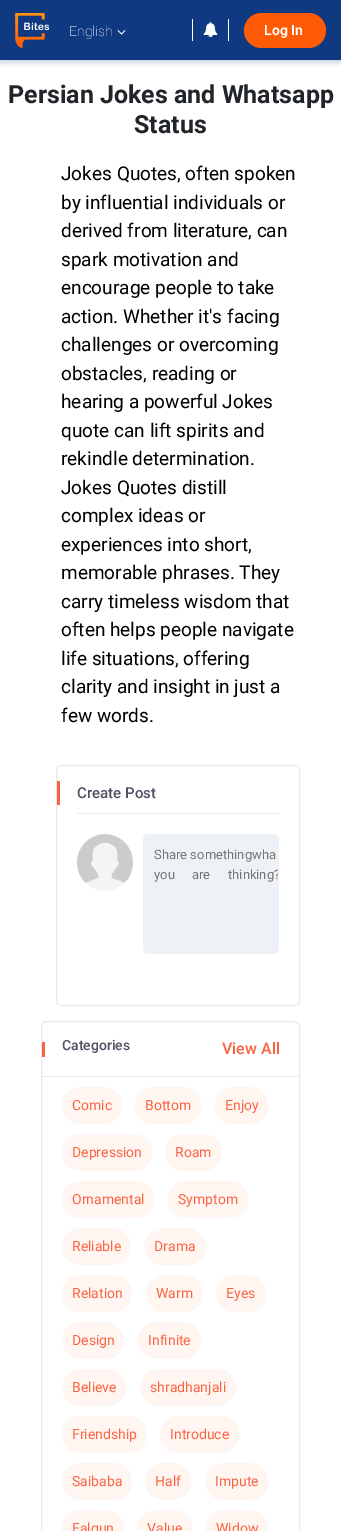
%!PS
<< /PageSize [341 1531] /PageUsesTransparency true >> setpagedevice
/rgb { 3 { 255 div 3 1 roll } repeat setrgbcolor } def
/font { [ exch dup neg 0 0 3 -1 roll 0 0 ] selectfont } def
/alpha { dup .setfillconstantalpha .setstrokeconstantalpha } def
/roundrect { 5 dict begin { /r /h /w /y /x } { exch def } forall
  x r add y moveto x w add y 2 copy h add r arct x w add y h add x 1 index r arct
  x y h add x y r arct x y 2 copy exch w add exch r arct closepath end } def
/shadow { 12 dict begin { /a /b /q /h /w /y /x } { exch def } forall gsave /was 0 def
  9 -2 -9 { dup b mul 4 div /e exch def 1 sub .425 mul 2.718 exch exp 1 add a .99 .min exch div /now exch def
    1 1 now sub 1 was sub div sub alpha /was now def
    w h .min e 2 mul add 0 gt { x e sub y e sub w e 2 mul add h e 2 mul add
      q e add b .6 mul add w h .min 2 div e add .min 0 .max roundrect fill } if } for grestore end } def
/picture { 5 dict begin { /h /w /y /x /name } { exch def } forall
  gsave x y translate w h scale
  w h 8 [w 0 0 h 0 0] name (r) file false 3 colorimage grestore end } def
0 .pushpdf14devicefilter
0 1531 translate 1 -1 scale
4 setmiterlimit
255 255 255 rgb
0 0 341 1531 rectfill
15 57 129 rgb
-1 1 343 62 0 2.5 0.2 shadow
0 0 341 60 rectfill
(img/1.rgb) 15 13 34 35 picture
(img/2.rgb) 117 30 9 5 picture
255 255 255 rgb
228 19 1 22 rectfill
192 19 1 22 rectfill
(img/3.rgb) 203 22 15 16 picture
255 90 6 rgb
244 13 82 35 17.5 roundrect fill
237 233 233 rgb
56.5 765.5 243 240 4.5 roundrect stroke
230 236 245 rgb
77 813 202 1 rectfill
250 99 66 rgb
57 781 3 24 rectfill
(img/4.rgb) 77 834 56 57 picture
237 242 246 rgb
143 834 136 120 5 roundrect fill
237 233 233 rgb
41.5 1021.5 258 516 5.5 roundrect stroke
230 236 245 rgb
42 1076 257 1 rectfill
250 99 66 rgb
42 1042 3 15 rectfill
255 246 242 rgb
62 1087 60 37 18.5 roundrect fill
135 1087 66 37 18.5 roundrect fill
215 1087 53 37 18.5 roundrect fill
62 1134 90 37 18.5 roundrect fill
165 1134 57 37 18.5 roundrect fill
62 1181 92 37 18.5 roundrect fill
168 1181 80 37 18.5 roundrect fill
62 1228 69 37 18.5 roundrect fill
144 1228 62 37 18.5 roundrect fill
62 1275 70 37 18.5 roundrect fill
146 1275 57 37 18.5 roundrect fill
216 1275 50 37 18.5 roundrect fill
62 1322 62 37 18.5 roundrect fill
138 1322 63 37 18.5 roundrect fill
62 1369 64 37 18.5 roundrect fill
140 1369 96 37 18.5 roundrect fill
62 1416 85 37 18.5 roundrect fill
160 1416 79 37 18.5 roundrect fill
62 1463 70 37 18.5 roundrect fill
145 1463 46 37 18.5 roundrect fill
205 1463 63 37 18.5 roundrect fill
62 1510 62 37 18.5 roundrect fill
137 1510 55 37 18.5 roundrect fill
206 1510 62 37 18.5 roundrect fill
/Roboto-Thin 14 font
255 255 255 rgb
69 36 moveto (English) show
/Heebo-SemiBold 14 font
264 35 moveto (Log In) show
/Roboto-Bold 25 font
33 37 41 rgb
8 103 moveto (Persian Jokes and Whatsapp) show
134 133 moveto (Status) show
/Roboto-Regular 19 font
0 0 0 rgb
[
  [(Jokes Quotes, often spoken) 61 180]
  [(by influential individuals or) 61 209]
  [(derived from literature, can) 61 237]
  [(spark motivation and) 61 266]
  [(encourage people to take) 61 294]
  [(action. Whether it's facing) 61 323]
  [(challenges or overcoming) 61 351]
  [(obstacles, reading or) 61 380]
  [(hearing a powerful Jokes) 61 408]
  [(quote can lift spirits and) 61 437]
  [(rekindle determination.) 61 465]
  [(Jokes Quotes distill) 61 494]
  [(complex ideas or) 61 522]
  [(experiences into short,) 61 551]
  [(memorable phrases. They) 61 579]
  [(carry timeless wisdom that) 61 608]
  [(often helps people navigate) 61 636]
  [(life situations, offering) 61 665]
  [(clarity and insight in just a) 61 693]
  [(few words.) 61 722]
] { aload pop moveto show } forall
/Roboto-Medium 15 font
81 83 101 rgb
77 798 moveto (Create Post) show
/Roboto-Regular 13 font
117 117 117 rgb
154 859 moveto (Share somethingwha) show
154 879 moveto 14 0 32 (you are) widthshow
gsave
144 835 134 118 4 roundrect clip newpath
228 879 moveto (thinking?) show
grestore
/Roboto-Medium 14 font
81 83 101 rgb
62 1050 moveto (Categories) show
/Roboto-Medium 16 font
250 99 66 rgb
222 1054 moveto (View All) show
/Roboto-Regular 14 font
[
  [(Comic) 72 1110]
  [(Bottom) 145 1110]
  [(Enjoy) 225 1110]
  [(Depression) 72 1157]
  [(Roam) 175 1157]
  [(Ornamental) 72 1204]
  [(Symptom) 178 1204]
  [(Reliable) 72 1251]
  [(Drama) 154 1251]
  [(Relation) 72 1298]
  [(Warm) 156 1298]
  [(Eyes) 226 1298]
  [(Design) 72 1345]
  [(Infinite) 148 1345]
  [(Believe) 72 1392]
  [(shradhanjali) 150 1392]
  [(Friendship) 72 1439]
  [(Introduce) 170 1439]
  [(Saibaba) 72 1486]
  [(Half) 155 1486]
  [(Impute) 215 1486]
  [(Falgun) 72 1533]
  [(Value) 147 1533]
  [(Widow) 216 1533]
] { aload pop moveto show } forall
.poppdf14devicefilter showpage
